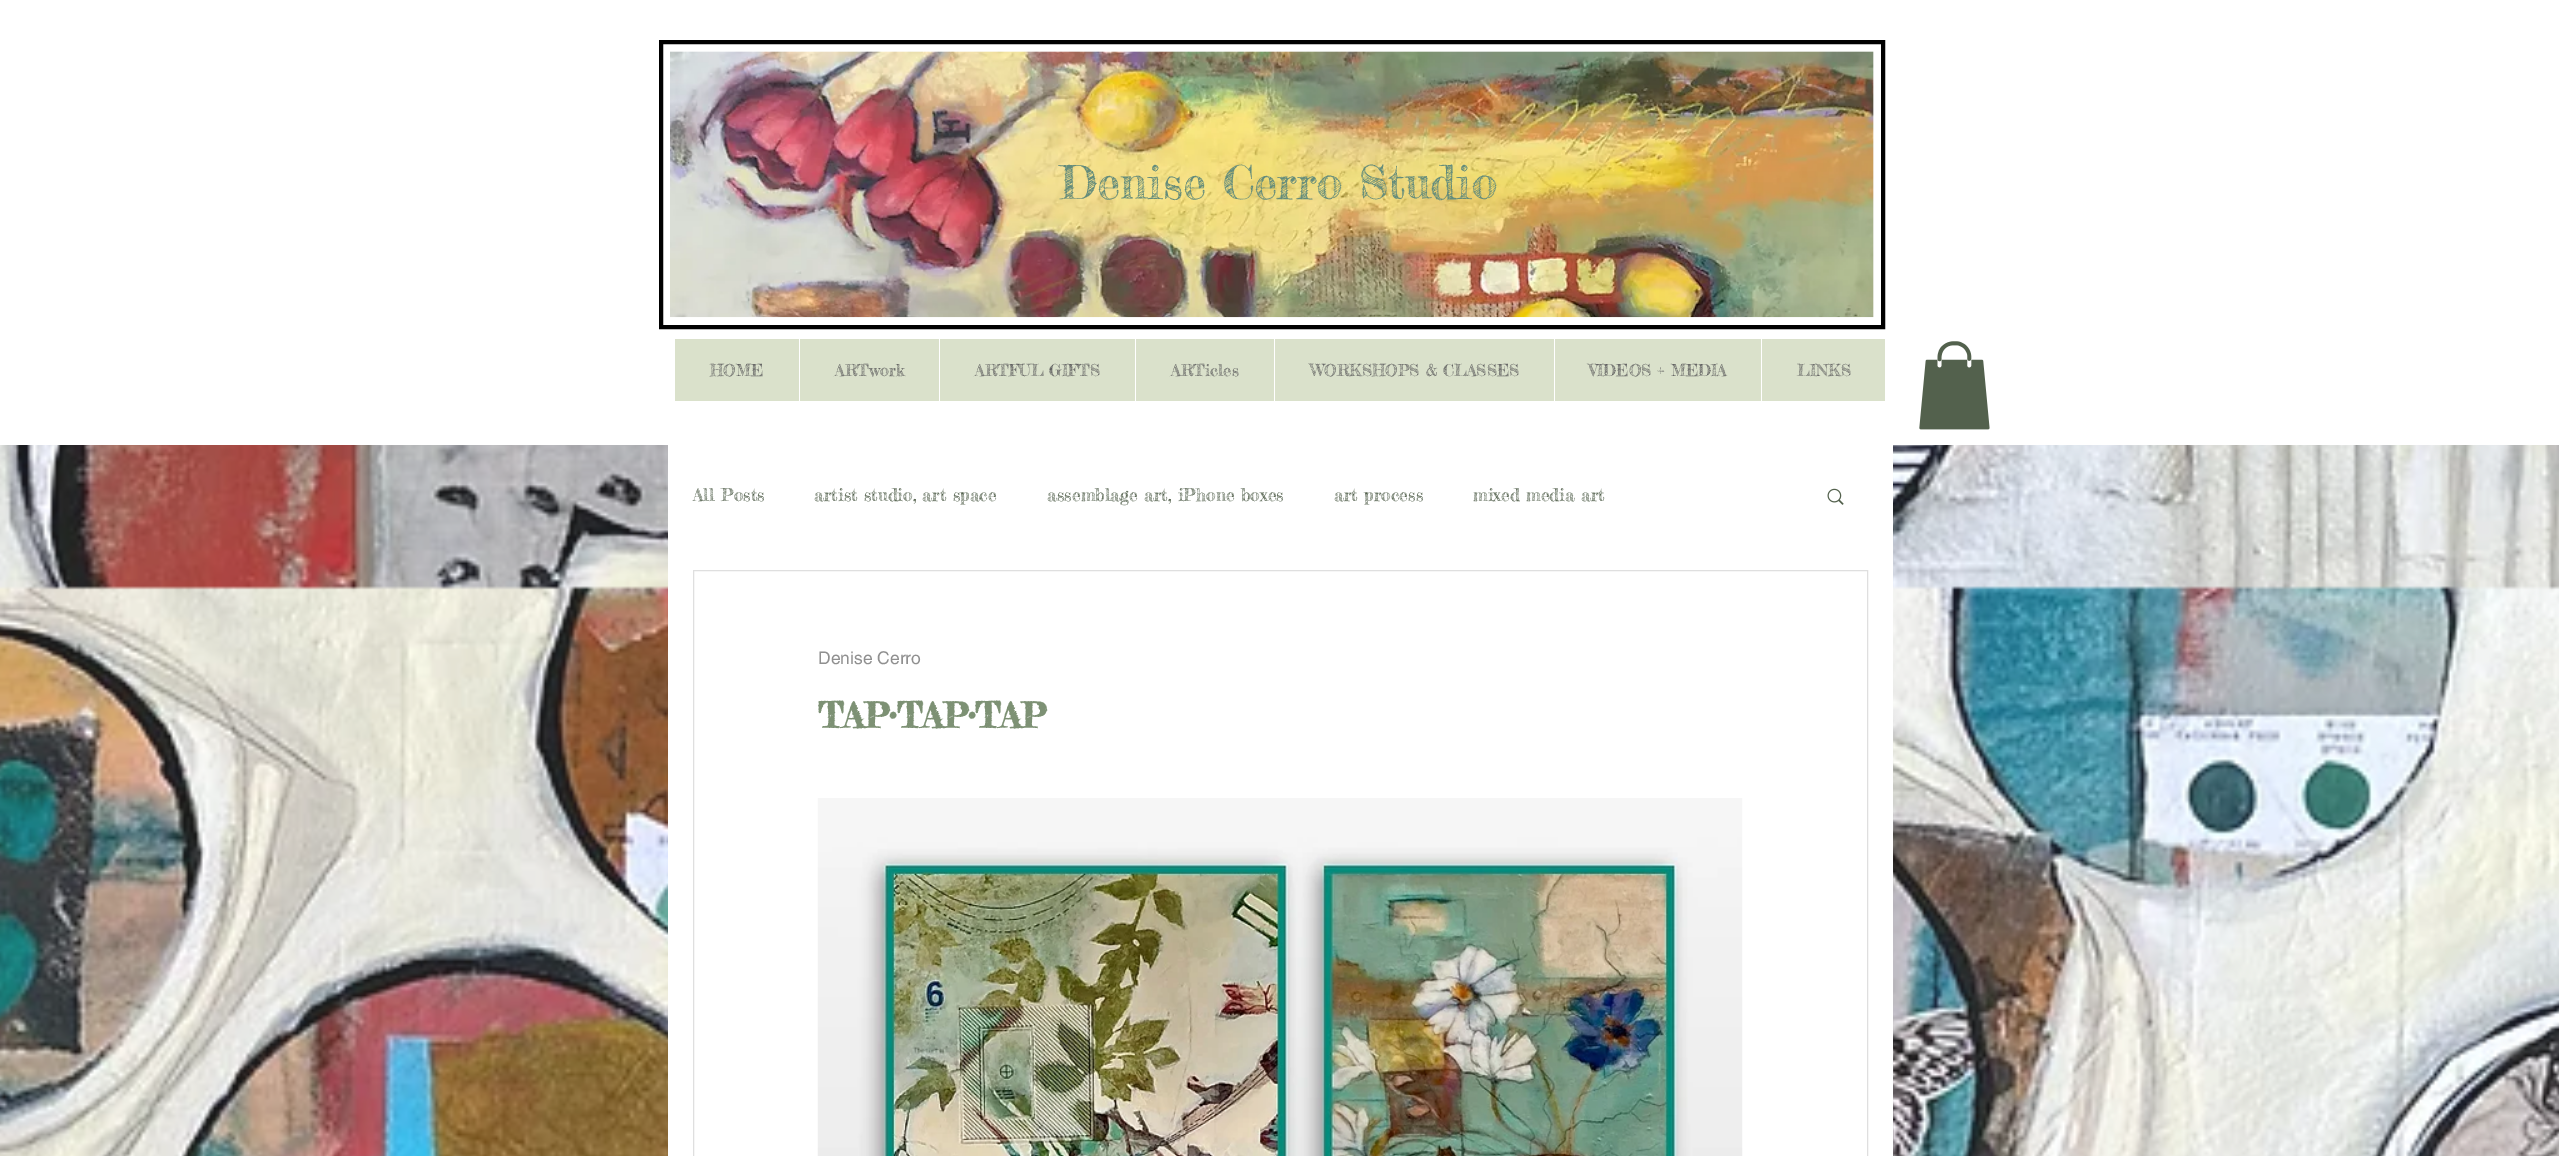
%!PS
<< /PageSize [2559 1156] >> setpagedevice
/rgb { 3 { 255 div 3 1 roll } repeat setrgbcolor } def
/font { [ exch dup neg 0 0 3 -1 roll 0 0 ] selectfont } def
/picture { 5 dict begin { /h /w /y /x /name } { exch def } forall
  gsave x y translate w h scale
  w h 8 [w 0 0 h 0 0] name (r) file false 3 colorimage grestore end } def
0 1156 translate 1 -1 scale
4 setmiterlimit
255 255 255 rgb
0 0 2559 1156 rectfill
0 0 0 rgb
4 setlinewidth
661 42 1222 285 rectstroke
(img/1.rgb) 670 51 1204 267 picture
[
  [675 339 1210 62 218 225 203]
  [799 339 1 62 255 255 255]
  [939 339 1 62 255 255 255]
  [1135 339 1 62 255 255 255]
  [1274 339 1 62 255 255 255]
  [1554 339 1 62 255 255 255]
  [1761 339 1 62 255 255 255]
] { aload pop rgb rectfill } forall
(img/2.rgb) 1919 341 71 89 picture
(img/3.rgb) 0 445 2559 711 picture
668 445 1225 711 rectfill
(img/4.rgb) 1827 488 17 17 picture
223 223 223 rgb
1 setlinewidth
693.5 570.5 1174 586 rectstroke
(img/5.rgb) 817 798 926 358 picture
/FrederickatheGreat-Regular 46.25 font
100 140 123 rgb
1060 199 moveto (Denise Cerro Studio) show
/FrederickatheGreat-Regular 16.25 font
96 96 96 rgb
[
  [(HOME) 710 376]
  [(ARTwork) 835 376]
  [(ARTFUL GIFTS) 975 376]
  [(ARTicles) 1171 376]
  [(WORKSHOPS & CLASSES) 1310 376]
  [(VIDEOS + MEDIA) 1589 376]
  [(LINKS) 1797 376]
] { aload pop moveto show } forall
/FrederickatheGreat-Regular 17.5 font
83 97 77 rgb
[
  [(All Posts) 693 501]
  [(artist studio, art space) 814 501]
  [(assemblage art, iPhone boxes) 1047 501]
  [(art process) 1334 501]
  [(mixed media art) 1473 501]
] { aload pop moveto show } forall
/helvetica-Regular 17.5 font
144 144 144 rgb
818 664 moveto (Denise Cerro) show
/FrederickatheGreat-Bold 35 font
125 145 116 rgb
818 728 moveto (TAP•TAP•TAP) show
showpage
